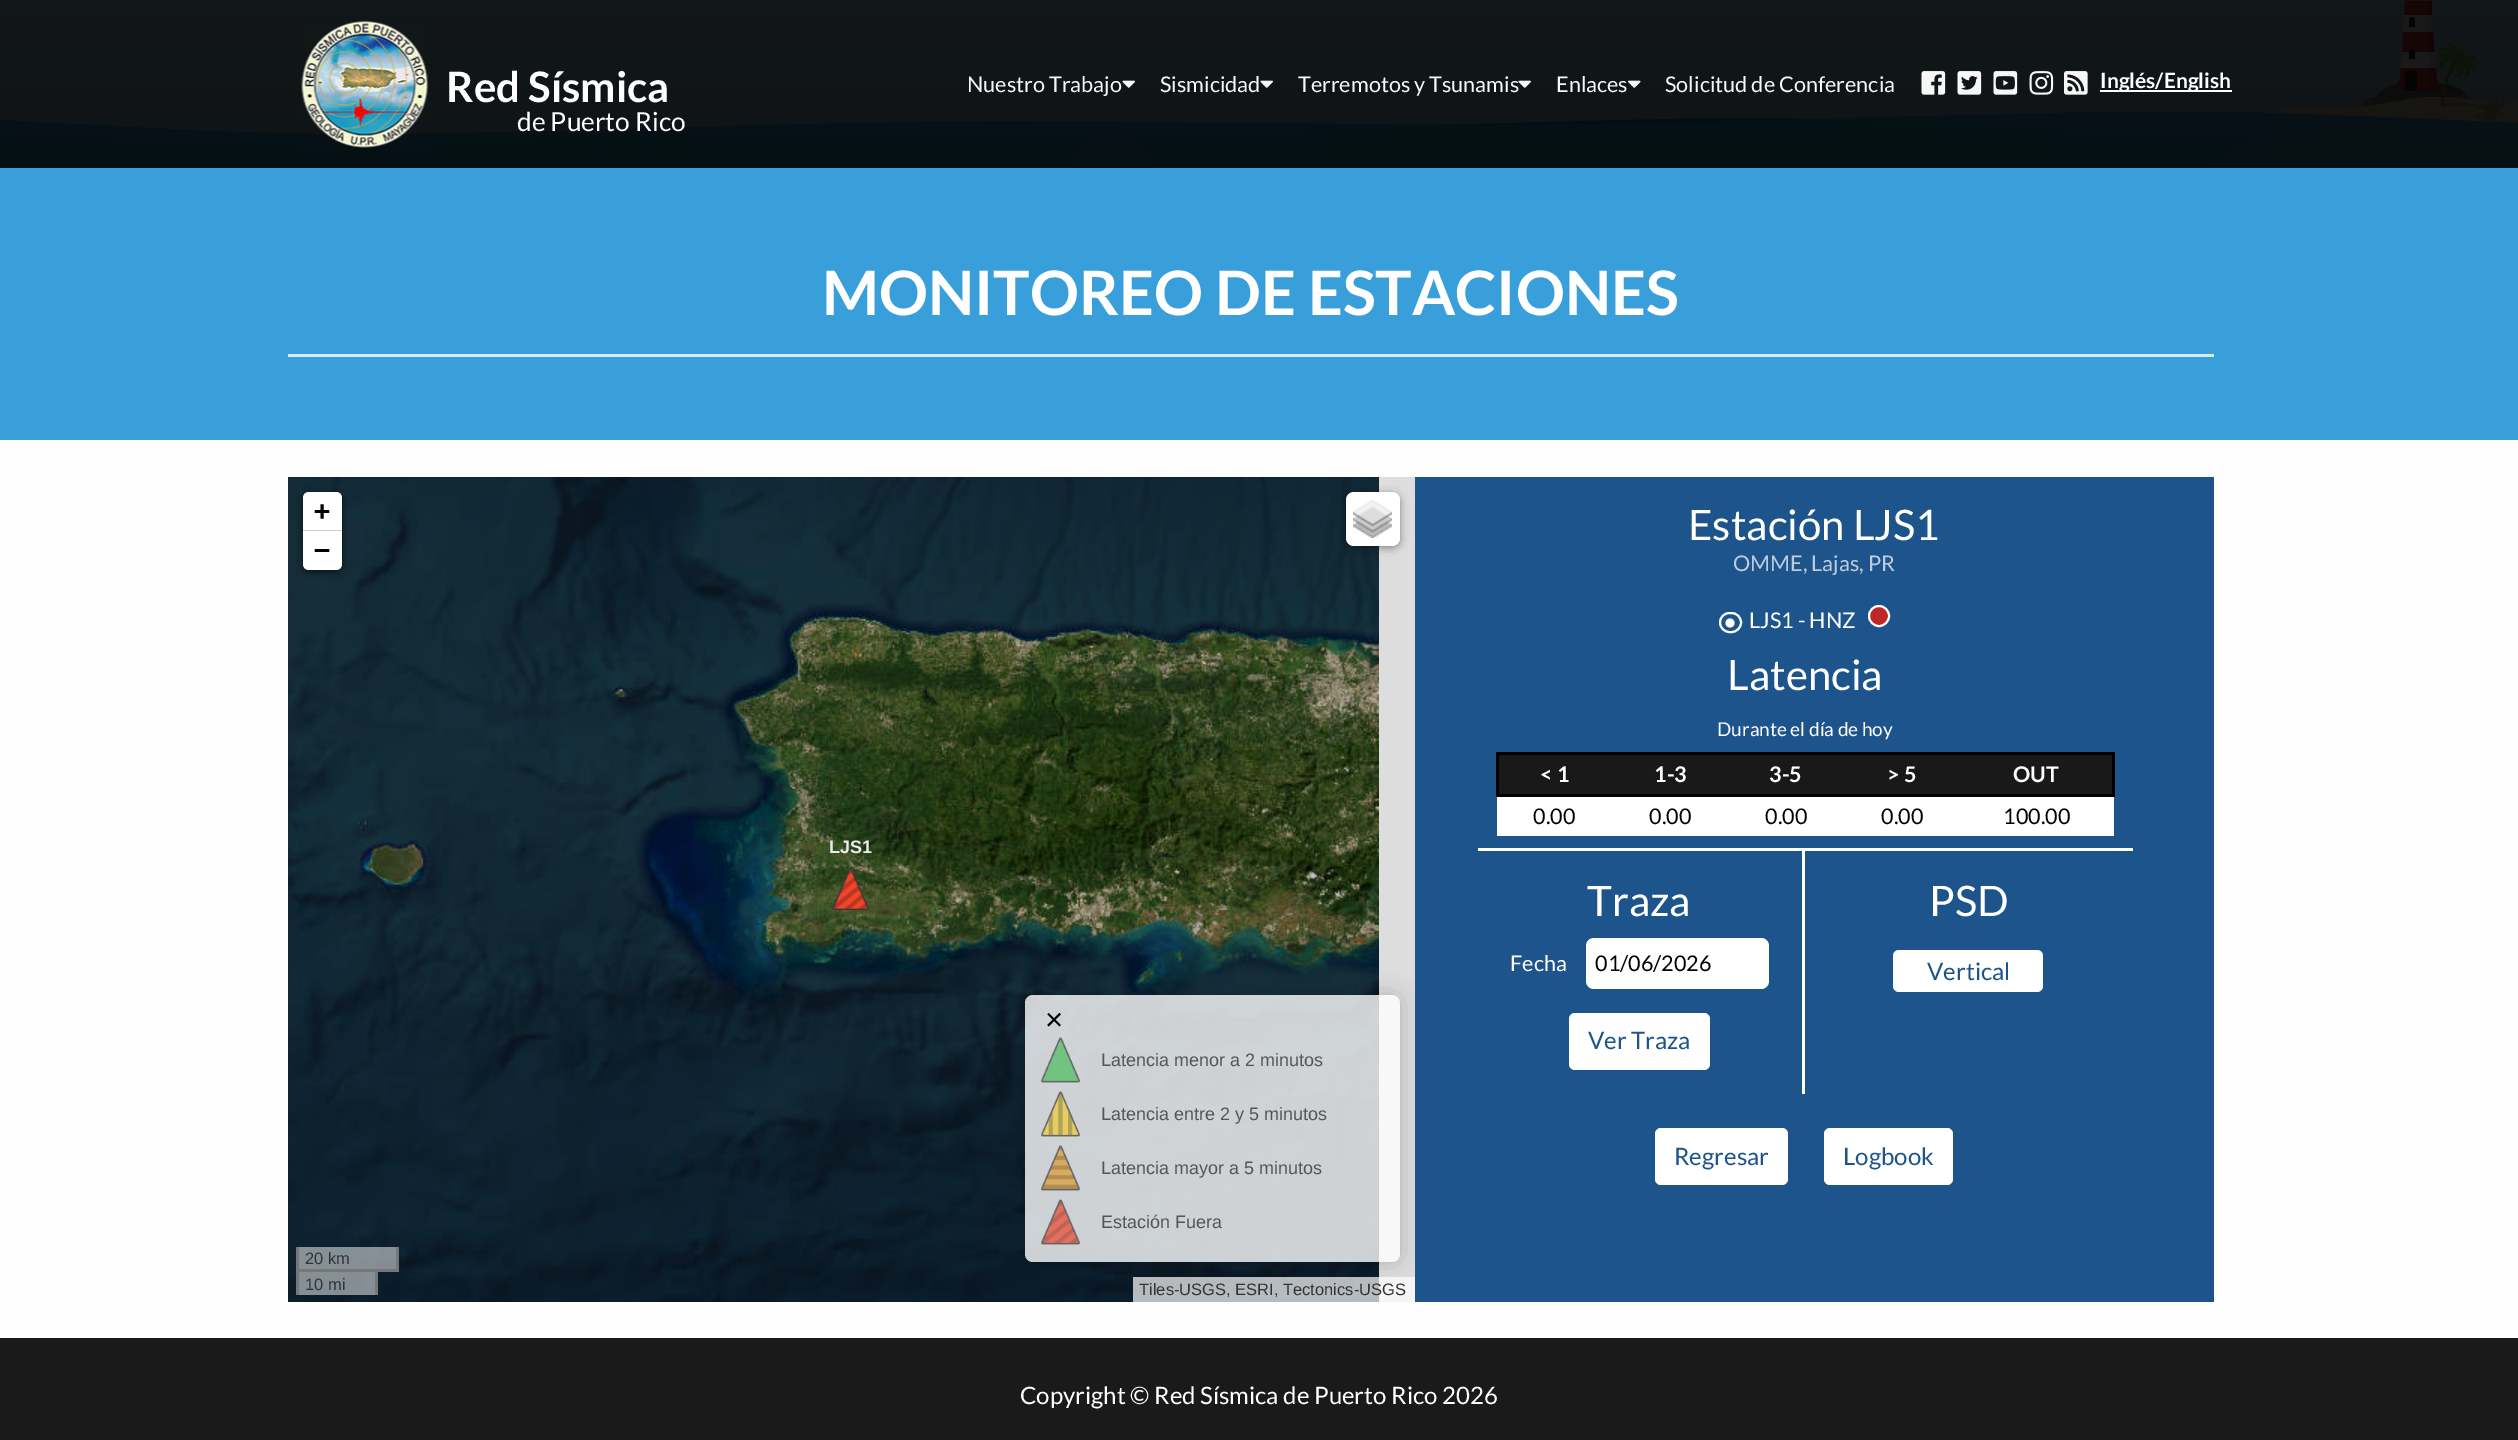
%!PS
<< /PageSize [2518 1440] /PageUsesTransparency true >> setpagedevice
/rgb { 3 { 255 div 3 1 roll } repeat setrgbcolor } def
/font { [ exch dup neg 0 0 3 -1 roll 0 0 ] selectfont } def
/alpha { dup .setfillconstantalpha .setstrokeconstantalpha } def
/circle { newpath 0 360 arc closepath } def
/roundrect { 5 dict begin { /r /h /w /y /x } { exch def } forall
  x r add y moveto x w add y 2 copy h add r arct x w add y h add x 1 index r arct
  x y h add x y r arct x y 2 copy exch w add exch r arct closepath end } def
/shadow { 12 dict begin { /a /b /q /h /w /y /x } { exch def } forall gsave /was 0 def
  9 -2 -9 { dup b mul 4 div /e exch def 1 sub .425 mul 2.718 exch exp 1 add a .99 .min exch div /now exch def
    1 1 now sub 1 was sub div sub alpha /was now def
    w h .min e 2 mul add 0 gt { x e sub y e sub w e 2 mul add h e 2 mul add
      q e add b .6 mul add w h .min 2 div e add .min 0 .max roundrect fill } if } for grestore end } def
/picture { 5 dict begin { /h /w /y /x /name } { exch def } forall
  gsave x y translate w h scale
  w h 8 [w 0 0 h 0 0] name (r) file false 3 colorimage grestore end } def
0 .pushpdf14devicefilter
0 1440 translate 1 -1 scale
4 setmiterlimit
255 255 255 rgb
0 0 2518 1440 rectfill
gsave 0 0 moveto 2518 0 lineto 2518 221 lineto 0 221 lineto closepath clip newpath
<< /ShadingType 2 /ColorSpace /DeviceRGB /Coords [1259 -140 1259 273] /Extend [true true] /Function << /FunctionType 3 /Domain [0 1] /Functions [<< /FunctionType 2 /Domain [0 1] /C0 [0.706 0.89 0.961] /C1 [0.706 0.89 0.961] /N 1 >> << /FunctionType 2 /Domain [0 1] /C0 [0.706 0.89 0.961] /C1 [0.541 0.714 0.78] /N 1 >>] /Bounds [0.26] /Encode [0 1 0 1] >> >> shfill grestore
(img/9.rgb) 2204 0 314 168 picture
1118.5 152.5 20.5 circle fill
1082 141 22 23 11 roundrect fill
0 0 0 rgb
1071 153 78 27 13.5 0.5 0.1 shadow
gsave 1071 152 78 27 13.5 roundrect clip newpath
<< /ShadingType 2 /ColorSpace /DeviceRGB /Coords [1110 152 1110 179] /Extend [true true] /Function << /FunctionType 3 /Domain [0 1] /Functions [<< /FunctionType 2 /Domain [0 1] /C0 [1 1 1] /C1 [1 1 1] /N 1 >> << /FunctionType 2 /Domain [0 1] /C0 [1 1 1] /C1 [0.945 0.945 0.945] /N 1 >>] /Bounds [0.05] /Encode [0 1 0 1] >> >> shfill grestore
0.9 alpha
32 120 172 rgb
0 132 moveto 252 144 252 144 504 138 curveto 756 132 756 132 1007 131 curveto 1259 131 1259 131 1511 123 curveto 1763 116 1763 116 2015 127 curveto 2267 138 2267 138 2518 126 curveto 2518 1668 lineto 0 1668 lineto closepath fill
0.94 alpha
57 161 221 rgb
0 120 moveto 315 137 315 137 630 129 curveto 944 120 944 120 1259 123 curveto 1574 126 1574 126 1889 117 curveto 2204 109 2204 109 2518 123 curveto 2518 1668 lineto 0 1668 lineto closepath fill
0.9 alpha
0 0 0 rgb
0 0 2518 168 rectfill
1 alpha
(img/1.rgb) 301 20 128 129 picture
(img/2.rgb) 1122 80 13 8 picture
(img/2.rgb) 1260 80 13 8 picture
(img/2.rgb) 1518 80 13 8 picture
(img/3.rgb) 1628 80 13 8 picture
(img/4.rgb) 1921 71 25 24 picture
(img/5.rgb) 1957 71 25 24 picture
(img/6.rgb) 1993 71 25 24 picture
(img/7.rgb) 2029 71 25 24 picture
(img/8.rgb) 2064 71 24 24 picture
[
  [2100 90 132 2 255 255 255]
  [288 354 1926 3 215 236 248]
  [0 440 2518 898 254 254 254]
  [1379 477 36 825 221 221 221]
] { aload pop rgb rectfill } forall
(img/15.rgb) 288 477 323 66 picture
(img/18.rgb) 288 543 323 384 picture
0 0 0 rgb
303 494 39 78 6 4 0.65 shadow
255 255 255 rgb
309 492 moveto 336 492 lineto 339.5 492 342 494.5 342 498 curveto 342 531 lineto 303 531 lineto 303 498 lineto 303 494.5 305.5 492 309 492 curveto closepath fill
204 204 204 rgb
303 530 39 1 rectfill
255 255 255 rgb
303 531 moveto 342 531 lineto 342 564 lineto 342 567.5 339.5 570 336 570 curveto 309 570 lineto 305.5 570 303 567.5 303 564 curveto closepath fill
(img/17.rgb) 995 477 384 66 picture
(img/19.rgb) 611 543 384 384 picture
(img/20.rgb) 994 543 385 384 picture
0 0 0 rgb
1346 494 54 54 8 4 0.4 shadow
255 255 255 rgb
1346 492 54 54 8 roundrect fill
(img/10.rgb) 1353 500 39 38 picture
(img/21.rgb) 288 927 323 375 picture
0.5 alpha
[
  [299 1247 97 22 255 255 255]
] { aload pop rgb rectfill } forall
1 alpha
[
  [396 1247 3 25 119 119 119]
  [378 1269 21 3 119 119 119]
  [296 1247 3 25 119 119 119]
] { aload pop rgb rectfill } forall
0.5 alpha
[
  [299 1272 76 23 255 255 255]
] { aload pop rgb rectfill } forall
1 alpha
[
  [296 1269 82 3 119 119 119]
  [375 1269 3 26 119 119 119]
  [296 1269 3 26 119 119 119]
] { aload pop rgb rectfill } forall
(img/22.rgb) 611 926 384 376 picture
(img/23.rgb) 994 926 385 376 picture
30 84 140 rgb
1415 477 799 825 rectfill
gsave
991 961 moveto 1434 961 lineto 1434 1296 lineto 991 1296 lineto closepath 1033 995 moveto 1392 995 lineto 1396.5 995 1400 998.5 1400 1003 curveto 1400 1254 lineto 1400 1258.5 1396.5 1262 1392 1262 curveto 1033 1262 lineto 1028.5 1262 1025 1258.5 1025 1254 curveto 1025 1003 lineto 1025 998.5 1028.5 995 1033 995 curveto closepath eoclip newpath
0 0 0 rgb
1025 995 375 267 8 11 0.2 shadow
grestore
0.8 alpha
255 255 255 rgb
1025 995 375 267 8 roundrect fill
1 alpha
(img/11.rgb) 1041 1037 39 46 picture
(img/12.rgb) 1041 1091 39 46 picture
(img/13.rgb) 1041 1145 39 46 picture
(img/14.rgb) 1041 1199 39 46 picture
0.7 alpha
1133 1277 282 25 rectfill
1 alpha
(img/16.rgb) 611 477 384 66 picture
(img/24.rgb) 832 868 37 42 picture
1730 623 4.5 circle fill
2 setlinewidth
1720 613 21 19 9.5 roundrect stroke
190 39 39 rgb
1879 616 10 circle gsave fill grestore
255 255 255 rgb
stroke
[
  [1478 848 655 3 255 255 255]
  [1499 755 613 39 25 25 25]
  [1496 752 619 3 0 0 0]
  [2112 752 3 45 0 0 0]
  [1496 794 619 3 0 0 0]
  [1496 752 3 45 0 0 0]
  [1497 797 617 39 255 255 255]
  [1802 851 3 243 255 255 255]
] { aload pop rgb rectfill } forall
1586 938 183 51 8 roundrect fill
1569 1013 141 57 6 roundrect fill
1893 950 150 42 6 roundrect fill
1655 1128 133 57 6 roundrect fill
1824 1128 129 57 6 roundrect fill
26 26 26 rgb
0 1338 2518 102 rectfill
/Lato-Bold 42 font
255 255 255 rgb
446 102 moveto (Red Sísmica) show
/Lato-Regular 26.25 font
517 131 moveto (de Puerto Rico) show
/Lato-Regular 21.6 font
247 247 247 rgb
[
  [(Nuestro Trabajo) 967 92]
  [(Sismicidad) 1160 92]
  [(Terremotos y Tsunamis) 1298 92]
  [(Enlaces) 1556 92]
  [(Solicitud de Conferencia) 1665 92]
] { aload pop moveto show } forall
/Lato-Bold 21 font
255 255 255 rgb
2100 88 moveto (Inglés/English) show
/Lato-Bold 61.25 font
822 315 moveto (MONITOREO DE ESTACIONES) show
/DejaVuSansMono-Bold 27 font
0 0 0 rgb
314 520 moveto (+) show
314 559 moveto (−) show
/LiberationSans-Regular 16.5 font
51 51 51 rgb
305 1264 moveto (20 km) show
305 1290 moveto (10 mi) show
/LiberationSans-Regular 31 font
0 0 0 rgb
1045 1030 moveto (×) show
/LiberationSans-Regular 18 font
85 85 85 rgb
[
  [(Latencia menor a 2 minutos) 1101 1066]
  [(Latencia entre 2 y 5 minutos) 1101 1120]
  [(Latencia mayor a 5 minutos) 1101 1174]
  [(Estación Fuera) 1101 1228]
] { aload pop moveto show } forall
/LiberationSans-Regular 16.5 font
51 51 51 rgb
1139 1295 moveto (Tiles-USGS, ESRI, Tectonics-USGS) show
/LiberationSans-Bold 18 font
234 237 233 rgb
829 853 moveto (LJS1) show
/Lato-Regular 42 font
255 255 255 rgb
1688 540 moveto (Estación LJS1) show
/Lato-Regular 21.6 font
188 204 221 rgb
1733 571 moveto (OMME, Lajas, PR) show
255 255 255 rgb
1749 628 moveto (LJS1 - HNZ) show
/Lato-Regular 42 font
1727 690 moveto (Latencia) show
/Lato-Regular 19 font
1717 736 moveto (Durante el día de hoy) show
/Lato-Bold 21.6 font
[
  [(< 1) 1540 782]
  [(1-3) 1654 782]
  [(3-5) 1769 782]
  [(> 5) 1887 782]
  [(OUT) 2013 782]
] { aload pop moveto show } forall
/Lato-Regular 21.6 font
0 0 0 rgb
[
  [(0.00) 1533 824]
  [(0.00) 1649 824]
  [(0.00) 1765 824]
  [(0.00) 1881 824]
  [(100.00) 2003 824]
] { aload pop moveto show } forall
/Lato-Regular 42 font
255 255 255 rgb
1587 916 moveto (Traza) show
/Lato-Regular 21.6 font
1510 971 moveto (Fecha) show
0 0 0 rgb
1595 971 moveto (01/06/2026) show
/Lato-Regular 24 font
30 84 140 rgb
1588 1049 moveto (Ver Traza) show
/Lato-Regular 42 font
255 255 255 rgb
1929 916 moveto (PSD) show
/Lato-Regular 24 font
30 84 140 rgb
[
  [(Vertical) 1927 980]
  [(Regresar) 1674 1165]
  [(Logbook) 1843 1165]
] { aload pop moveto show } forall
255 255 255 rgb
1020 1404 moveto (Copyright © Red Sísmica de Puerto Rico 2026) show
.poppdf14devicefilter showpage
